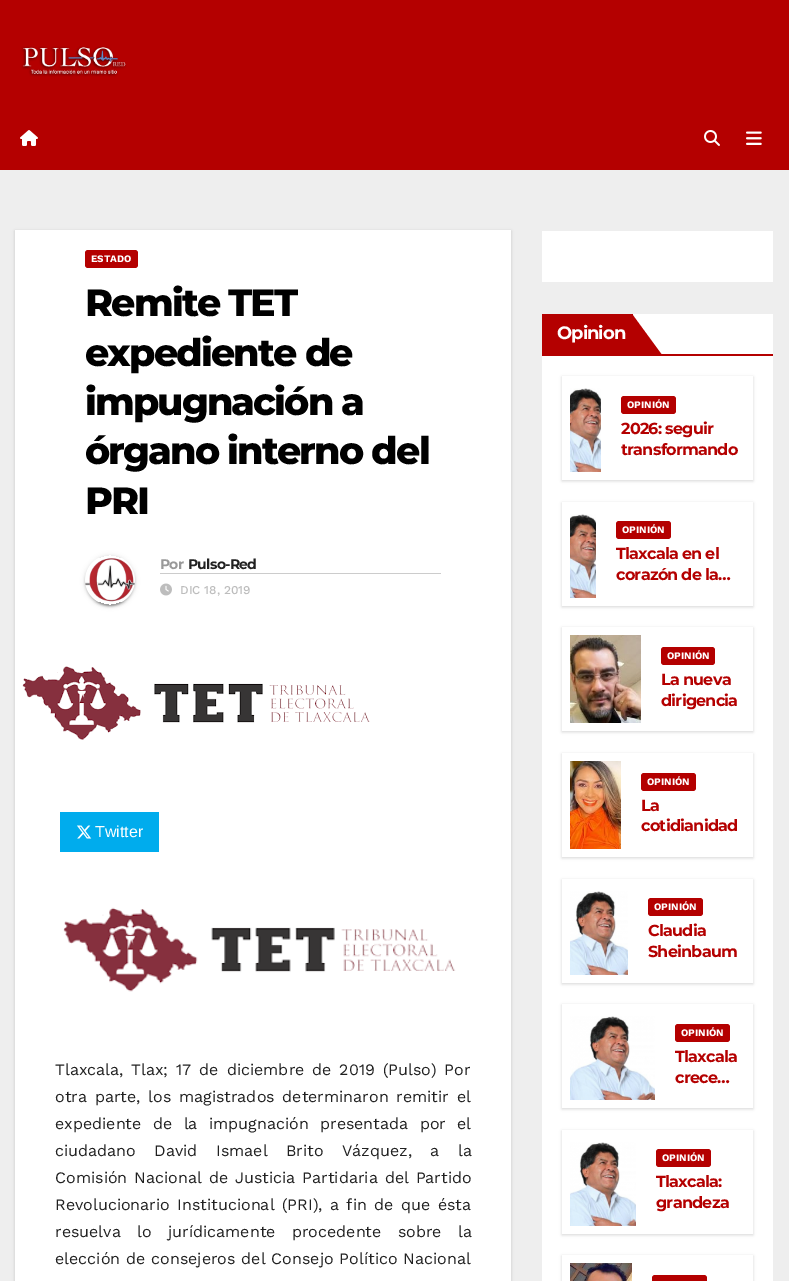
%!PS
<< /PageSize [789 1281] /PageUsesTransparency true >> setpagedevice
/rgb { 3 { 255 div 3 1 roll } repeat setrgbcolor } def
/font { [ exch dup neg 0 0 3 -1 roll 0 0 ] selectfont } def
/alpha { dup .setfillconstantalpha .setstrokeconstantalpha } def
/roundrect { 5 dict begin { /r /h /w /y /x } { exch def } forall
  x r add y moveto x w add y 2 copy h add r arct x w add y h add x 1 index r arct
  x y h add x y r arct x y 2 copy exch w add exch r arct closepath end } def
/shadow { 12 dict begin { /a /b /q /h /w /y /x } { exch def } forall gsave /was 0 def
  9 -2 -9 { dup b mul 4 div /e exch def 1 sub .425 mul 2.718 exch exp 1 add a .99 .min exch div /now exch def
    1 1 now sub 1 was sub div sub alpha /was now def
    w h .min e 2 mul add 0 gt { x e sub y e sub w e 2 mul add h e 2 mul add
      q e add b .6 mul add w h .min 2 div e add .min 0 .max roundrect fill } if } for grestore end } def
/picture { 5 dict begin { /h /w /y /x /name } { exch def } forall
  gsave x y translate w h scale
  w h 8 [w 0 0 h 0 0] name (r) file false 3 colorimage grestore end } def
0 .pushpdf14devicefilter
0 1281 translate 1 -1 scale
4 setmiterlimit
238 238 238 rgb
0 0 789 1281 rectfill
180 0 0 rgb
0 0 789 170 rectfill
(img/1.rgb) 21 46 106 31 picture
(img/2.rgb) 20 130 18 16 picture
(img/3.rgb) 704 130 16 16 picture
(img/4.rgb) 746 131 16 14 picture
0 0 0 rgb
15 231 496 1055 0 1.5 0.15 shadow
255 255 255 rgb
15 230 496 1051 rectfill
180 0 0 rgb
85 250 53 18 3 roundrect fill
gsave
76 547 moveto 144 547 lineto 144 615 lineto 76 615 lineto closepath 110 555 moveto 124 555 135 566 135 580 curveto 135 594 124 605 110 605 curveto 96 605 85 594 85 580 curveto 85 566 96 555 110 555 curveto closepath eoclip newpath
0 0 0 rgb
85 556 50 50 25 2.5 0.12 shadow
grestore
gsave
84 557 moveto 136 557 lineto 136 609 lineto 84 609 lineto closepath 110 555 moveto 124 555 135 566 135 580 curveto 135 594 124 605 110 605 curveto 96 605 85 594 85 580 curveto 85 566 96 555 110 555 curveto closepath eoclip newpath
0 0 0 rgb
87 560 46 46 23 0.5 0.2 shadow
grestore
gsave
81 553 moveto 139 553 lineto 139 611 lineto 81 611 lineto closepath 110 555 moveto 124 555 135 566 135 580 curveto 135 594 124 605 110 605 curveto 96 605 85 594 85 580 curveto 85 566 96 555 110 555 curveto closepath eoclip newpath
0 0 0 rgb
85 557 50 50 25 1 0.14 shadow
grestore
(img/5.rgb) 85 558 50 44 picture
204 204 204 rgb
160 573 281 1 rectfill
(img/6.rgb) 160 583 12 13 picture
(img/7.rgb) 22 666 348 74 picture
0 172 237 rgb
60 812 99 40 rectfill
(img/8.rgb) 77 825 15 14 picture
(img/9.rgb) 63 907 393 85 picture
[
  [542 231 231 51 255 255 255]
  [542 314 231 967 255 255 255]
  [542 354 231 2 180 0 0]
  [542 314 91 40 180 0 0]
] { aload pop rgb rectfill } forall
662 355 moveto 632 355 lineto 632 314 lineto closepath fill
gsave
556 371 moveto 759 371 lineto 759 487 lineto 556 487 lineto closepath 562 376 moveto 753 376 lineto 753 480 lineto 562 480 lineto closepath eoclip newpath
0 0 0 rgb
562 377 191 104 0 1.5 0.15 shadow
grestore
(img/10.rgb) 570 388 31 84 picture
621 396 55 18 3 roundrect fill
gsave
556 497 moveto 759 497 lineto 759 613 lineto 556 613 lineto closepath 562 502 moveto 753 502 lineto 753 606 lineto 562 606 lineto closepath eoclip newpath
0 0 0 rgb
562 503 191 104 0 1.5 0.15 shadow
grestore
(img/11.rgb) 570 514 26 84 picture
616 521 55 18 3 roundrect fill
gsave
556 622 moveto 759 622 lineto 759 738 lineto 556 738 lineto closepath 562 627 moveto 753 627 lineto 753 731 lineto 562 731 lineto closepath eoclip newpath
0 0 0 rgb
562 628 191 104 0 1.5 0.15 shadow
grestore
(img/12.rgb) 570 635 71 88 picture
661 647 54 18 3 roundrect fill
gsave
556 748 moveto 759 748 lineto 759 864 lineto 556 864 lineto closepath 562 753 moveto 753 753 lineto 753 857 lineto 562 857 lineto closepath eoclip newpath
0 0 0 rgb
562 754 191 104 0 1.5 0.15 shadow
grestore
(img/13.rgb) 570 761 51 88 picture
641 773 55 18 3 roundrect fill
gsave
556 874 moveto 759 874 lineto 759 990 lineto 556 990 lineto closepath 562 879 moveto 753 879 lineto 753 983 lineto 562 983 lineto closepath eoclip newpath
0 0 0 rgb
562 880 191 104 0 1.5 0.15 shadow
grestore
(img/14.rgb) 570 891 58 84 picture
648 898 55 18 3 roundrect fill
gsave
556 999 moveto 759 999 lineto 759 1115 lineto 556 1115 lineto closepath 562 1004 moveto 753 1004 lineto 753 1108 lineto 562 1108 lineto closepath eoclip newpath
0 0 0 rgb
562 1005 191 104 0 1.5 0.15 shadow
grestore
(img/15.rgb) 570 1016 85 84 picture
675 1024 55 18 3 roundrect fill
gsave
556 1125 moveto 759 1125 lineto 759 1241 lineto 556 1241 lineto closepath 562 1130 moveto 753 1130 lineto 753 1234 lineto 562 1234 lineto closepath eoclip newpath
0 0 0 rgb
562 1131 191 104 0 1.5 0.15 shadow
grestore
(img/16.rgb) 570 1142 66 84 picture
656 1149 55 18 3 roundrect fill
gsave
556 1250 moveto 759 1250 lineto 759 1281 lineto 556 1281 lineto closepath 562 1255 moveto 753 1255 lineto 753 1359 lineto 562 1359 lineto closepath eoclip newpath
0 0 0 rgb
562 1256 191 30 0 1.5 0.15 shadow
grestore
(img/17.rgb) 570 1263 62 18 picture
652 1275 55 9 3 roundrect fill
/WorkSans-Bold 10 font
255 255 255 rgb
91 262 moveto (ESTADO) show
/Montserrat-ExtraBold 38 font
0 0 0 rgb
85 316 moveto -1.9 0 (Remite TET) ashow
85 366 moveto -1.9 0 (expediente de) ashow
85 415 moveto -1.9 0 (impugnación a) ashow
85 464 moveto -1.9 0 (órgano interno del) ashow
85 514 moveto -1.9 0 (PRI) ashow
/Montserrat-Bold 14 font
153 153 153 rgb
160 569 moveto -0.75 0 (Por) ashow
33 33 33 rgb
188 569 moveto -0.75 0 (Pulso-Red) ashow
/WorkSans-Medium 12 font
189 189 189 rgb
180 594 moveto (DIC 18, 2019) show
/LiberationSans-Regular 16 font
255 255 255 rgb
95 837 moveto (Twitter) show
/WorkSans-Regular 16 font
33 33 33 rgb
55 1075 moveto 2.5 0 32 (Tlaxcala, Tlax; 17 de diciembre de 2019 \(Pulso\) Por) widthshow
55 1102 moveto 2.25 0 32 (otra parte, los magistrados determinaron remitir el) widthshow
55 1129 moveto 6 0 32 (expediente de la impugnación presentada por el) widthshow
55 1156 moveto 13 0 32 (ciudadano David Ismael Brito Vázquez, a la) widthshow
55 1183 moveto 1.5 0 32 (Comisión Nacional de Justicia Partidaria del Partido) widthshow
55 1210 moveto 2 0 32 (Revolucionario Institucional \(PRI\), a fin de que ésta) widthshow
55 1237 moveto 11 0 32 (resuelva lo jurídicamente procedente sobre la) widthshow
55 1264 moveto 0.5 0 32 (elección de consejeros del Consejo Político Nacional) widthshow
/Montserrat-Bold 18 font
255 255 255 rgb
557 339 moveto -1 0 (Opinion) ashow
/WorkSans-Bold 10 font
627 408 moveto (OPINIÓN) show
/Montserrat-Bold 16 font
180 0 0 rgb
621 434 moveto -0.75 0 (2026: seguir) ashow
621 455 moveto -0.75 0 (transformando) ashow
/WorkSans-Bold 10 font
255 255 255 rgb
622 533 moveto (OPINIÓN) show
/Montserrat-Bold 16 font
180 0 0 rgb
616 559 moveto -0.75 0 (Tlaxcala en el) ashow
616 580 moveto -0.75 0 (corazón de la…) ashow
/WorkSans-Bold 10 font
255 255 255 rgb
667 659 moveto (OPINIÓN) show
/Montserrat-Bold 16 font
180 0 0 rgb
661 685 moveto -0.75 0 (La nueva) ashow
661 706 moveto -0.75 0 (dirigencia) ashow
/WorkSans-Bold 10 font
255 255 255 rgb
647 785 moveto (OPINIÓN) show
/Montserrat-Bold 16 font
180 0 0 rgb
641 811 moveto -0.75 0 (La) ashow
641 831 moveto -0.75 0 (cotidianidad) ashow
/WorkSans-Bold 10 font
255 255 255 rgb
654 910 moveto (OPINIÓN) show
/Montserrat-Bold 16 font
180 0 0 rgb
648 936 moveto -0.75 0 (Claudia) ashow
648 957 moveto -0.75 0 (Sheinbaum) ashow
/WorkSans-Bold 10 font
255 255 255 rgb
681 1036 moveto (OPINIÓN) show
/Montserrat-Bold 16 font
180 0 0 rgb
675 1062 moveto -0.75 0 (Tlaxcala) ashow
675 1083 moveto -0.75 0 (crece…) ashow
/WorkSans-Bold 10 font
255 255 255 rgb
662 1161 moveto (OPINIÓN) show
/Montserrat-Bold 16 font
180 0 0 rgb
656 1187 moveto -0.75 0 (Tlaxcala:) ashow
656 1208 moveto -0.75 0 (grandeza) ashow
.poppdf14devicefilter showpage
